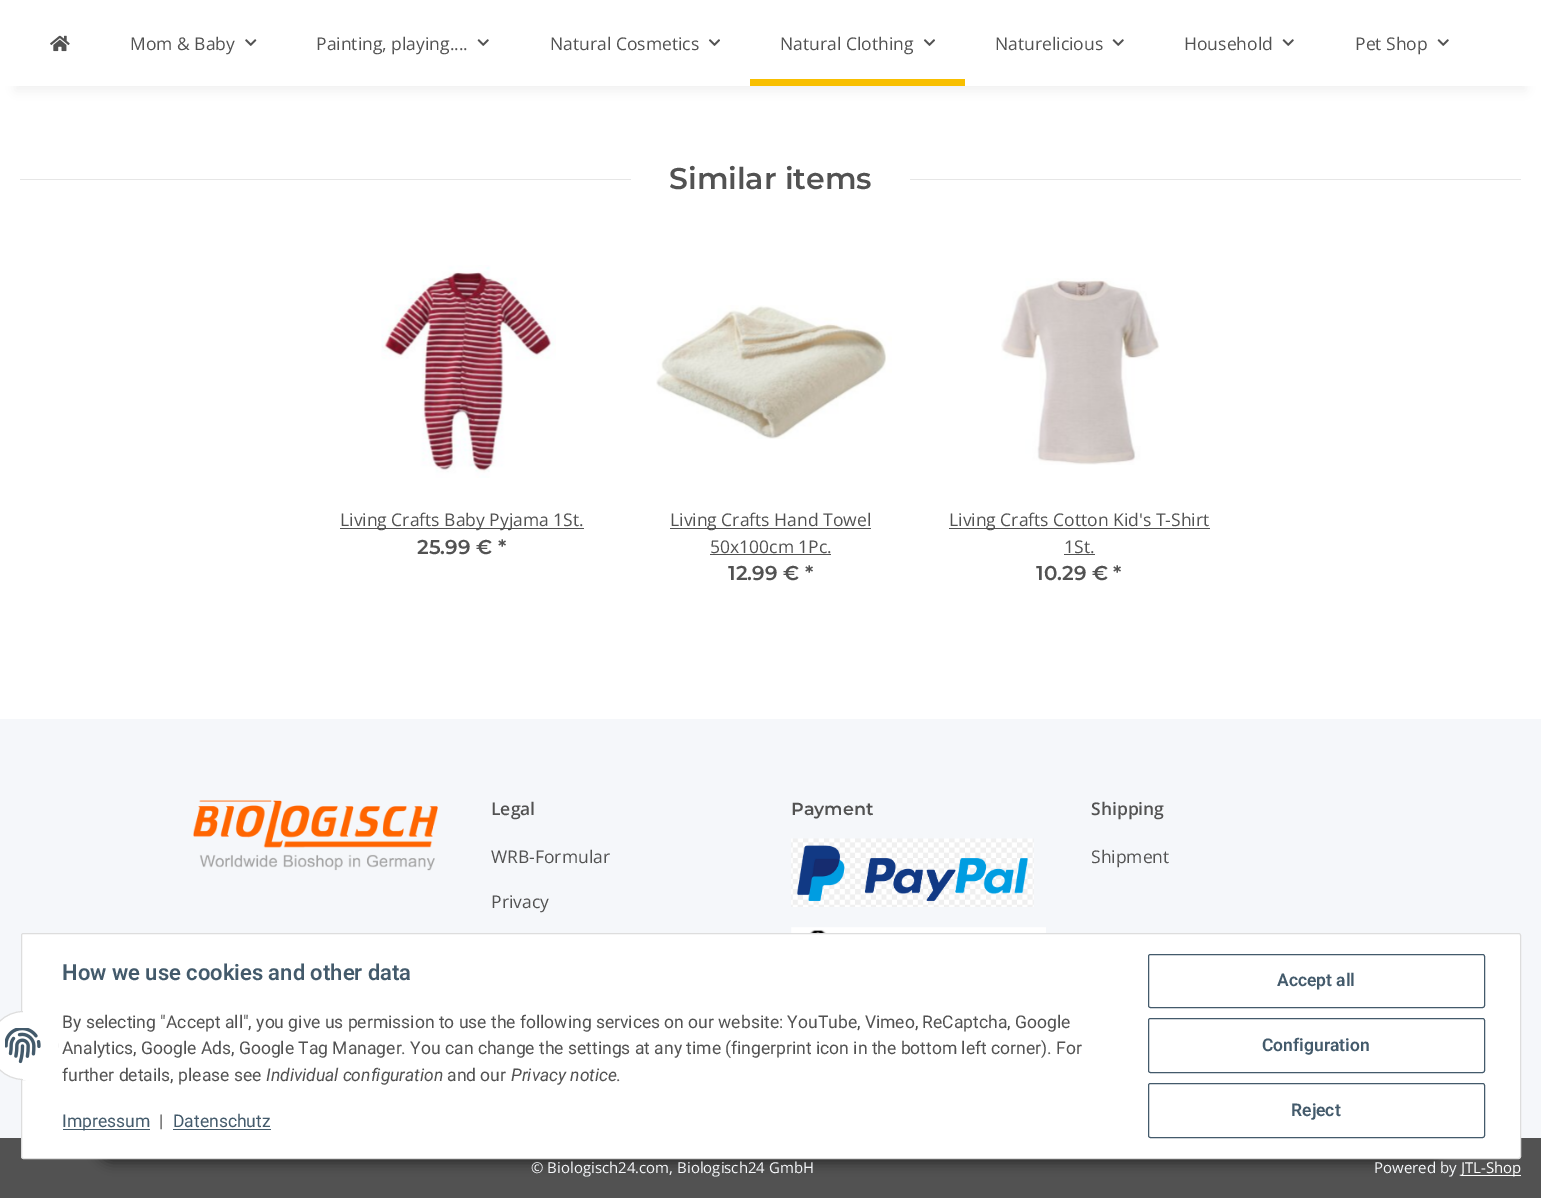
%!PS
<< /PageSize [1541 1198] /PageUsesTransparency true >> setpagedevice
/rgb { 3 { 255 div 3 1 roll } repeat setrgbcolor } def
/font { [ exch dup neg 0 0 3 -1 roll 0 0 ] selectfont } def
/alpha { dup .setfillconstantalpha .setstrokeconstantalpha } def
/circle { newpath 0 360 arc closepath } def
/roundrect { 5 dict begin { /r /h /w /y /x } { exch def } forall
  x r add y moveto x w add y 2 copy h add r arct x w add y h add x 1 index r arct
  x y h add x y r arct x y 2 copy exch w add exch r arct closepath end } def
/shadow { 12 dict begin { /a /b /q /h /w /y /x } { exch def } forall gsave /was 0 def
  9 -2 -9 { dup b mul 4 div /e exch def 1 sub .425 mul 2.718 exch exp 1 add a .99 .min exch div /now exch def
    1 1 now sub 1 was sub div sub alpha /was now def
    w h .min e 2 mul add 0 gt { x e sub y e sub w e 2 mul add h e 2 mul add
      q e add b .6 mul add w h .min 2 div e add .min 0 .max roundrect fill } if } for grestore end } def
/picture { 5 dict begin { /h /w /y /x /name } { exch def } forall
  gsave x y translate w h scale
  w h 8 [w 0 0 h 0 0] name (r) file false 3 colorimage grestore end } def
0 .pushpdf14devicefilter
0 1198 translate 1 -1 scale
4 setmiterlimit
245 247 250 rgb
0 0 1541 1198 rectfill
255 255 255 rgb
0 86 1541 633 rectfill
0 0 0 rgb
15 35 1511 56 0 5.5 0.06 shadow
255 255 255 rgb
0 0 1541 86 rectfill
(img/1.rgb) 50 35 20 17 picture
(img/2.rgb) 245 39 12 7 picture
(img/3.rgb) 477 39 12 7 picture
(img/4.rgb) 708 39 12 7 picture
(img/4.rgb) 923 39 12 7 picture
248 191 0 rgb
750 79 215 7 rectfill
(img/3.rgb) 1112 39 12 7 picture
(img/3.rgb) 1282 39 12 7 picture
(img/3.rgb) 1437 39 12 7 picture
230 230 230 rgb
20 179 611 1 rectfill
910 179 611 1 rectfill
(img/5.rgb) 381 265 175 213 picture
82 82 82 rgb
340 528 244 1 rectfill
(img/6.rgb) 656 305 236 134 picture
670 528 201 1 rectfill
710 554 121 1 rectfill
(img/7.rgb) 1001 278 159 187 picture
949 528 261 1 rectfill
1064 554 31 1 rectfill
(img/8.rgb) 193 800 245 71 picture
(img/9.rgb) 791 838 243 69 picture
(img/10.rgb) 791 927 255 6 picture
0 1138 1541 60 rectfill
255 255 255 rgb
1461 1175 60 1 rectfill
0 0 0 rgb
96 1123 1349 40 20 6 0.45 shadow
255 255 255 rgb
21.5 933.5 1499 225 2 roundrect gsave fill grestore
221 221 221 rgb
stroke
255 255 255 rgb
23.5 1045.5 34 circle gsave fill grestore
221 221 221 rgb
stroke
255 255 255 rgb
23 1011 35 69 rectfill
(img/11.rgb) 5 1028 36 36 picture
67 90 107 rgb
63 1129 87 1 rectfill
173 1129 98 1 rectfill
1148.5 954.5 336 53 2 roundrect stroke
1148.5 1018.5 336 54 2 roundrect stroke
1148.5 1083.5 336 54 2 roundrect stroke
/OpenSans-Regular 17.5 font
82 82 82 rgb
[
  [(Mom & Baby) 130 50]
  [(Painting, playing....) 316 50]
  [(Natural Cosmetics) 550 50]
  [(Natural Clothing) 780 50]
  [(Naturelicious) 995 50]
  [(Household) 1184 50]
  [(Pet Shop) 1355 50]
] { aload pop moveto show } forall
/Montserrat-SemiBold 30 font
669 189 moveto (Similar items) show
/OpenSans-Regular 17.5 font
340 526 moveto (Living Crafts Baby Pyjama 1St.) show
/Montserrat-SemiBold 20 font
417 554 moveto (25.99 € *) show
/OpenSans-Regular 17.5 font
670 526 moveto (Living Crafts Hand Towel) show
710 553 moveto (50x100cm 1Pc.) show
/Montserrat-SemiBold 20 font
728 580 moveto (12.99 € *) show
/OpenSans-Regular 17.5 font
949 526 moveto (Living Crafts Cotton Kid's T-Shirt) show
1064 553 moveto (1St.) show
/Montserrat-SemiBold 20 font
1036 580 moveto (10.29 € *) show
/OpenSans-SemiBold 17.5 font
491 815 moveto (Legal) show
/OpenSans-Regular 17.5 font
491 863 moveto (WRB-Formular) show
491 908 moveto (Privacy) show
/Montserrat-SemiBold 17.5 font
791 815 moveto (Payment) show
/OpenSans-SemiBold 17.5 font
1091 815 moveto (Shipping) show
/OpenSans-Regular 17.5 font
1091 863 moveto (Shipment) show
/OpenSans-Regular 15 font
245 247 250 rgb
531 1173 moveto (© Biologisch24.com, Biologisch24 GmbH) show
1374 1173 moveto (Powered by) show
255 255 255 rgb
1461 1173 moveto (JTL-Shop) show
/Roboto-SemiBold 22 font
67 90 107 rgb
62 980 moveto (How we use cookies and other data) show
/Roboto-Regular 17.5 font
82 82 82 rgb
[
  [(By selecting "Accept all", you give us permission to use the following services on our website: YouTube, Vimeo, ReCaptcha, Google) 62 1028]
  [(Analytics, Google Ads, Google Tag Manager. You can change the settings at any time \(fingerprint icon in the bottom left corner\). For) 62 1054]
  [(further details, please see) 62 1081]
] { aload pop moveto show } forall
/Roboto-Italic 17.5 font
266 1081 moveto (Individual configuration) show
/Roboto-Regular 17.5 font
447 1081 moveto (and our) show
/Roboto-Italic 17.5 font
511 1081 moveto (Privacy notice) show
/Roboto-Regular 17.5 font
616 1081 moveto (.) show
67 90 107 rgb
62 1127 moveto (Impressum) show
82 82 82 rgb
159 1127 moveto (|) show
67 90 107 rgb
173 1127 moveto (Datenschutz) show
/Roboto-SemiBold 17.5 font
[
  [(Accept all) 1277 986]
  [(Configuration) 1262 1051]
  [(Reject) 1291 1116]
] { aload pop moveto show } forall
.poppdf14devicefilter showpage
